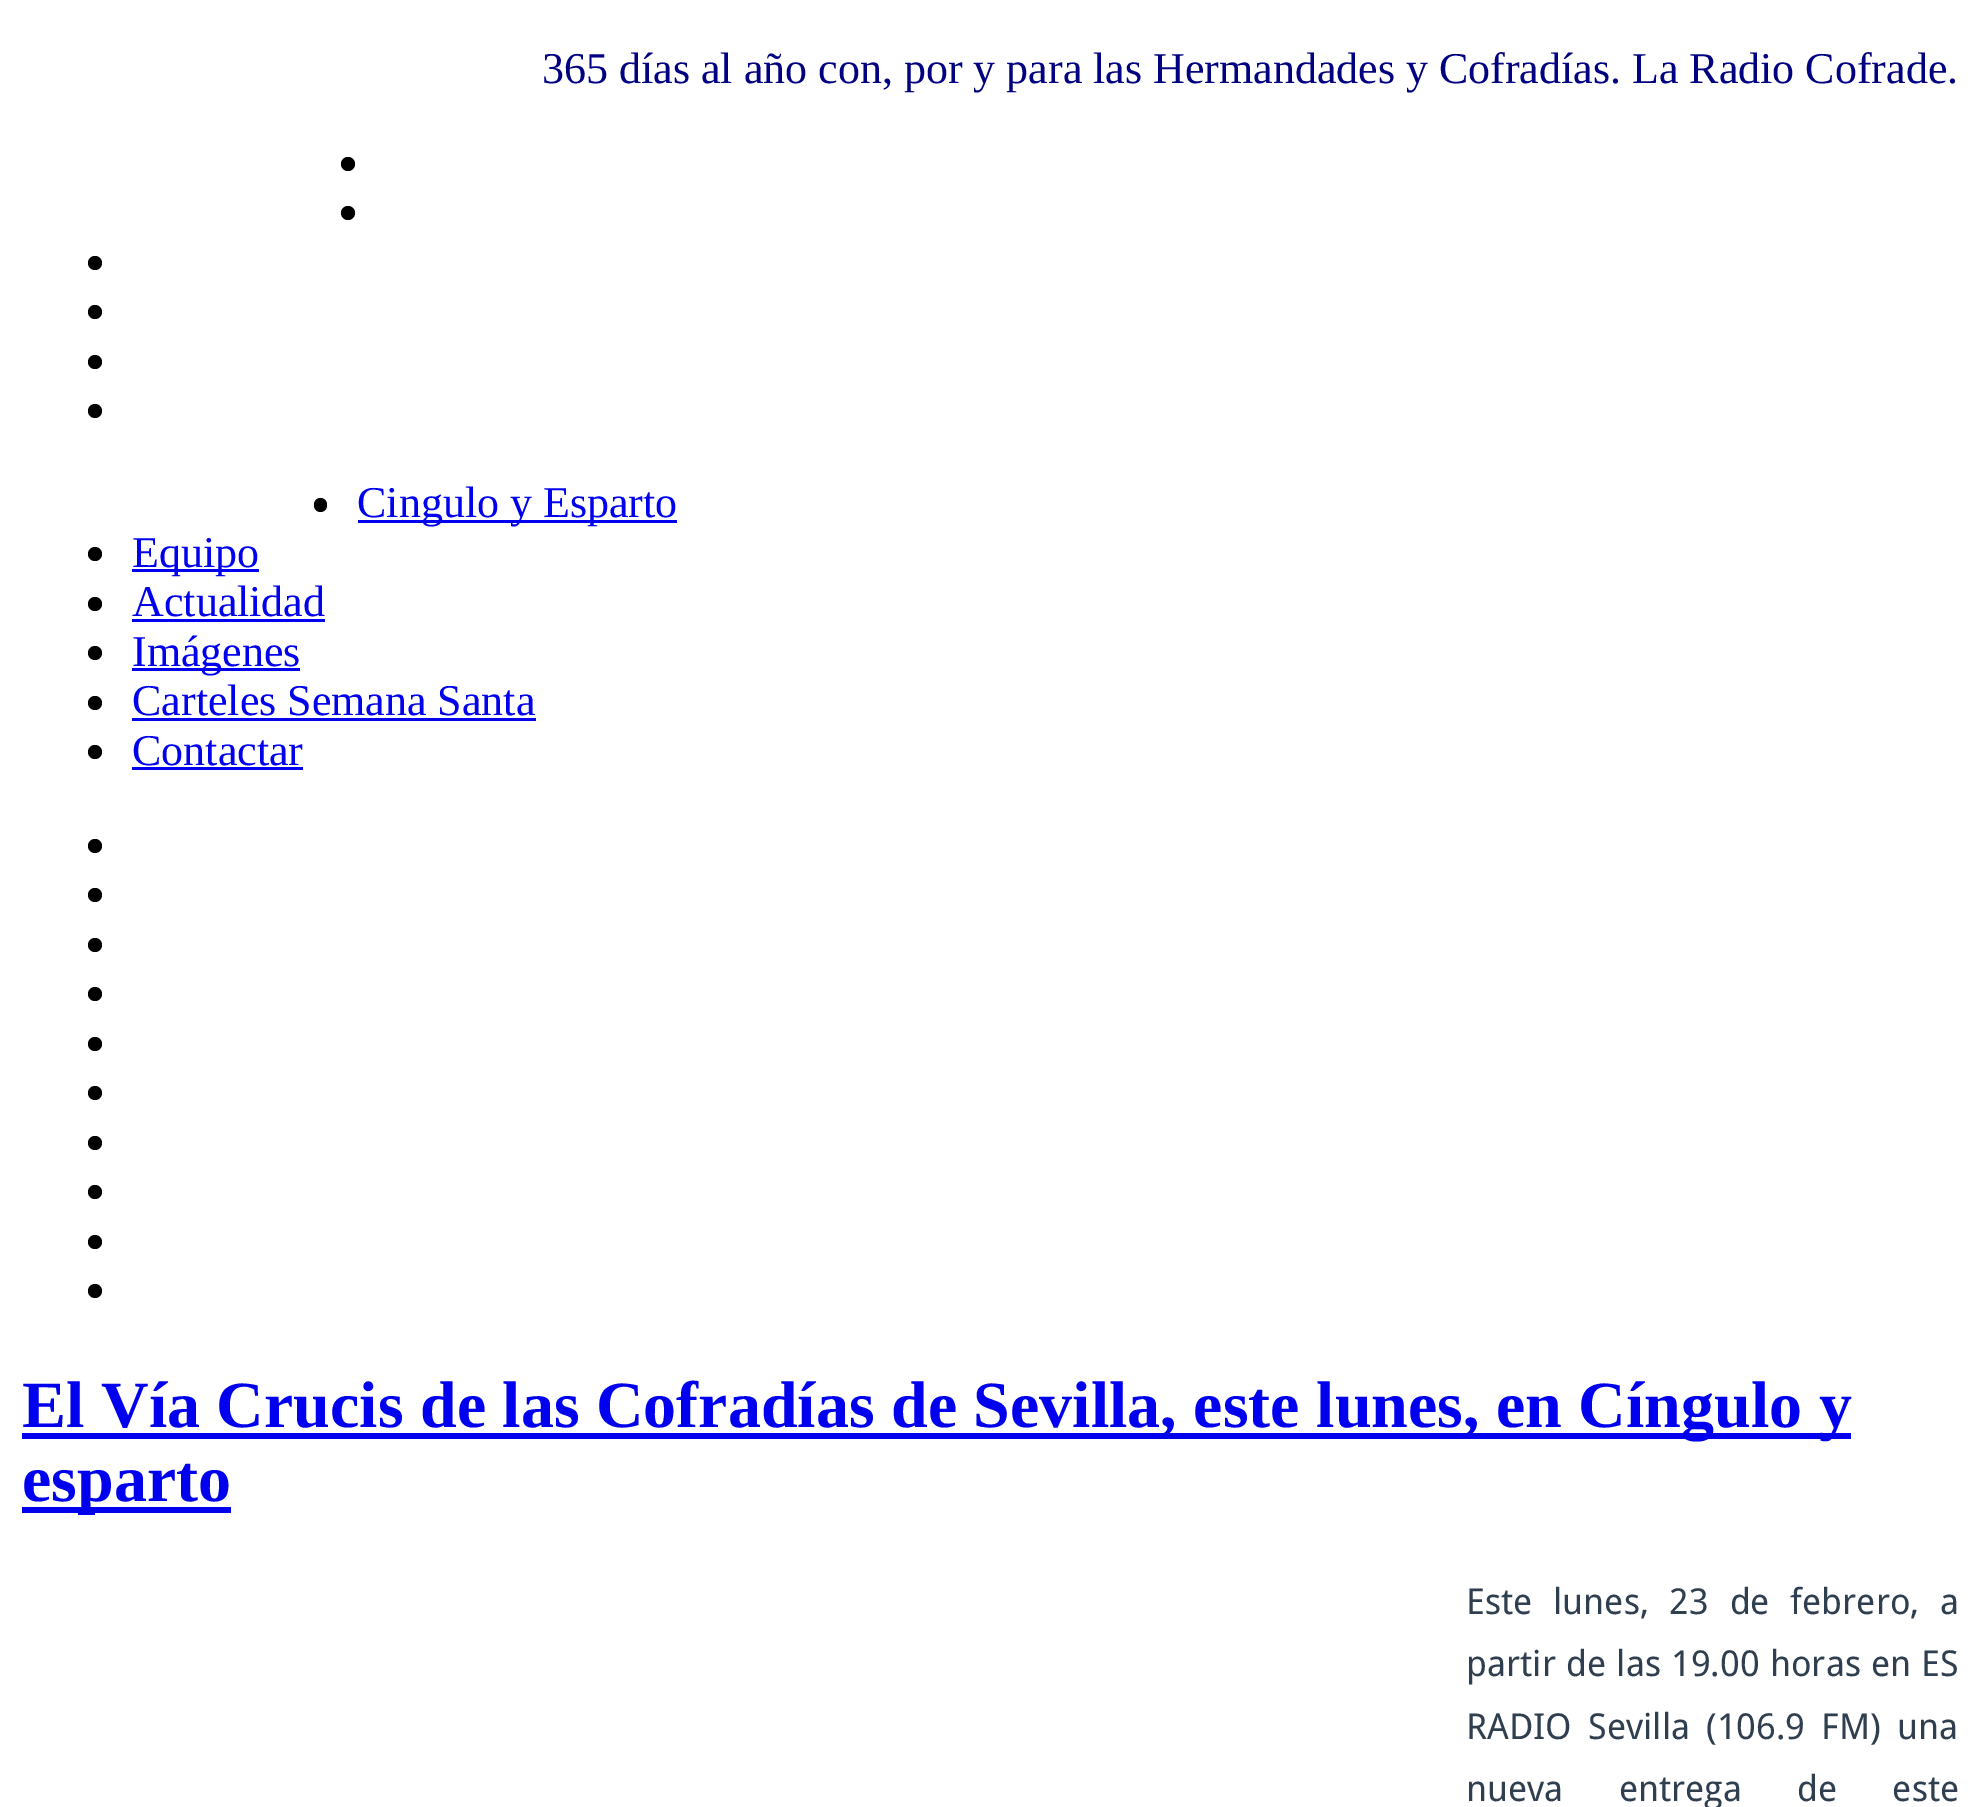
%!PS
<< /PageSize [1980 1807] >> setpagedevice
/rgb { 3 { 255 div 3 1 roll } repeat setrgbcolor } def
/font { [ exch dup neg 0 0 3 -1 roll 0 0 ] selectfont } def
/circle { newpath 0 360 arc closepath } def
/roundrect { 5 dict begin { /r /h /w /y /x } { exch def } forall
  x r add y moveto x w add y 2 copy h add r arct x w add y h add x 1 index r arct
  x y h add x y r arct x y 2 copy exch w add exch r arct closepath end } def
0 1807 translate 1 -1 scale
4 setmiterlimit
255 255 255 rgb
0 0 1980 1807 rectfill
0 0 0 rgb
348 164 7 circle fill
348 213 7 circle fill
95 263 7 circle fill
95 312 7 circle fill
95 362 7 circle fill
95 411 7 circle fill
314 498 13 14 6.5 roundrect fill
0 0 238 rgb
358 520 319 3 rectfill
0 0 0 rgb
95 554 7 circle fill
0 0 238 rgb
132 569 127 3 rectfill
0 0 0 rgb
95 604 7 circle fill
0 0 238 rgb
132 619 193 3 rectfill
0 0 0 rgb
95 653 7 circle fill
0 0 238 rgb
132 668 168 3 rectfill
0 0 0 rgb
95 703 7 circle fill
0 0 238 rgb
132 718 404 3 rectfill
0 0 0 rgb
95 752 7 circle fill
0 0 238 rgb
132 767 171 3 rectfill
0 0 0 rgb
95 846 7 circle fill
95 895 7 circle fill
95 945 7 circle fill
95 994 7 circle fill
95 1044 7 circle fill
95 1093 7 circle fill
95 1143 7 circle fill
95 1192 7 circle fill
95 1242 7 circle fill
95 1291 7 circle fill
0 0 238 rgb
22 1433 1829 6 rectfill
22 1507 209 6 rectfill
/LiberationSerif-Regular 44 font
0 0 128 rgb
542 83 moveto (365 días al año con, por y para las Hermandades y Cofradías. La Radio Cofrade.) show
0 0 238 rgb
[
  [(Cingulo y Esparto) 357 517]
  [(Equipo) 132 567]
  [(Actualidad) 132 616]
  [(Imágenes) 132 666]
  [(Carteles Semana Santa) 132 715]
  [(Contactar) 132 765]
] { aload pop moveto show } forall
/LiberationSerif-Bold 66 font
22 1427 moveto (El Vía Crucis de las Cofradías de Sevilla, este lunes, en Cíngulo y) show
22 1501 moveto (esparto) show
/DroidSans-Regular 35.75 font
48 63 80 rgb
1466 1614 moveto 11.5 0 32 (Este lunes, 23 de febrero, a) widthshow
1466 1676 moveto 1 0 32 (partir de las 19.00 horas en ES) widthshow
1466 1739 moveto 7 0 32 (RADIO Sevilla \(106.9 FM\) una) widthshow
1466 1801 moveto 46 0 32 (nueva entrega de este) widthshow
showpage
